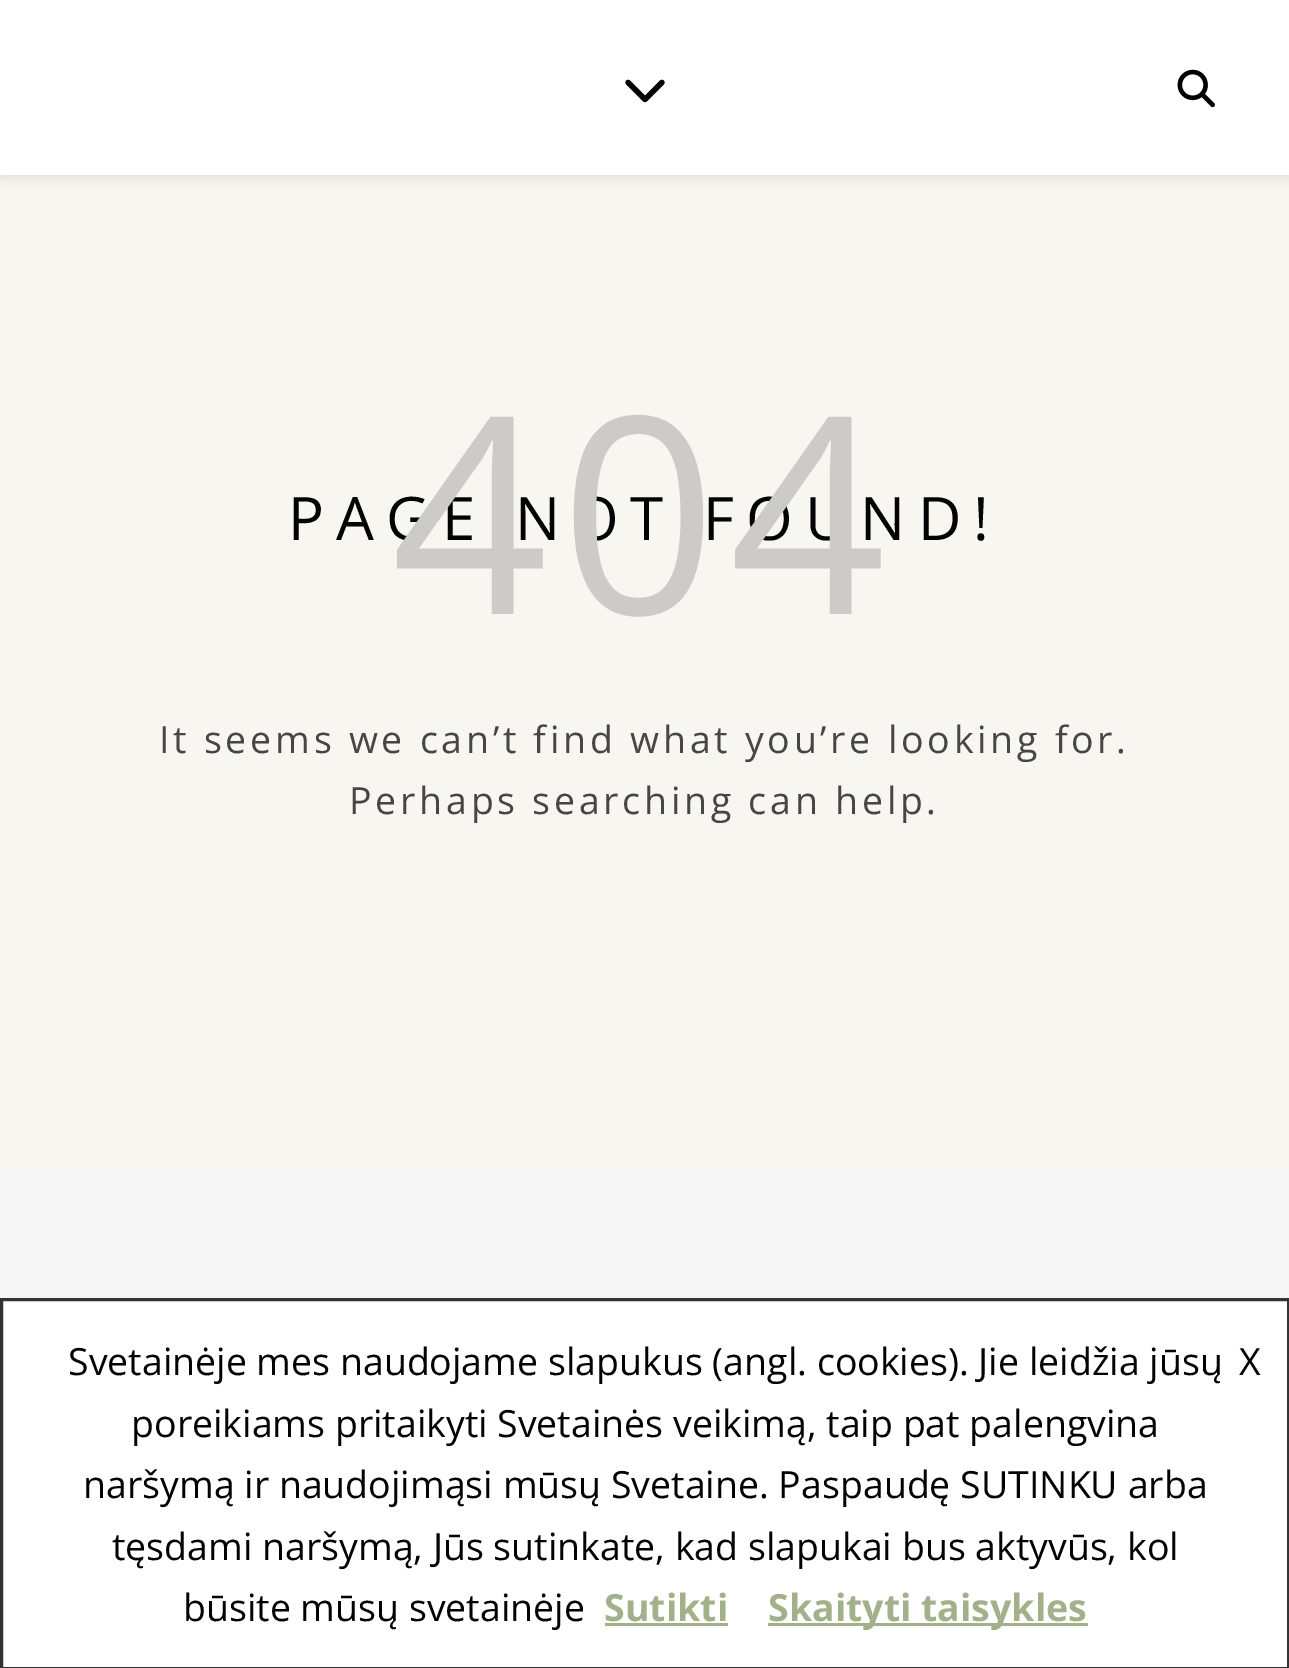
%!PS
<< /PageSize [1289 1668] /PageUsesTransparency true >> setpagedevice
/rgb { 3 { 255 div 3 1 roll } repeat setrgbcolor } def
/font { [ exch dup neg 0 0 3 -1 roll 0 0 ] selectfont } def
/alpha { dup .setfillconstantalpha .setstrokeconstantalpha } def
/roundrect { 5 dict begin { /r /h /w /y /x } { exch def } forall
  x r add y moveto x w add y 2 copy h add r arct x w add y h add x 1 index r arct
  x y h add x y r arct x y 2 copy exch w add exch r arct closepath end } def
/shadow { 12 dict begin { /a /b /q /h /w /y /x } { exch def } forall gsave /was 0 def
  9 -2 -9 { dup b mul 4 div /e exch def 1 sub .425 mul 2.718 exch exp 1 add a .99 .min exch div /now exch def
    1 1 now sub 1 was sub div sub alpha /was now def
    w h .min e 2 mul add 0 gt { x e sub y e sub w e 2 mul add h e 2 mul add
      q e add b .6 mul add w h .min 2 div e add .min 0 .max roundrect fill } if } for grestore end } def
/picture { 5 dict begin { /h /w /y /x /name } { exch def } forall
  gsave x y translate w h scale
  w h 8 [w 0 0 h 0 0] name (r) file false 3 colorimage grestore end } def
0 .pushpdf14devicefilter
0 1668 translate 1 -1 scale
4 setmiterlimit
248 246 241 rgb
0 0 1289 1668 rectfill
0 0 0 rgb
0 3 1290 175 0 6 0.1 shadow
255 255 255 rgb
0 0 1289 175 rectfill
(img/1.rgb) 625 79 40 24 picture
(img/2.rgb) 1177 69 38 39 picture
246 246 246 rgb
0 1168 1289 130 rectfill
255 255 255 rgb
1.5 1299.5 moveto 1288.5 1299.5 lineto 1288.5 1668.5 lineto 1.5 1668.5 lineto closepath gsave fill grestore
51 51 51 rgb
3 setlinewidth
stroke
163 177 138 rgb
605 1623 123 3 rectfill
768 1623 320 3 rectfill
/OpenSans-Regular 60 font
3 3 3 rgb
288 540 moveto 12 0 (PAGE NOT FOUND!) ashow
/OpenSans-Regular 275 font
205 203 199 rgb
391 614 moveto 12 0 (404) ashow
/OpenSans-Regular 37.5 font
70 70 70 rgb
159 753 moveto 3.75 0 (It seems we can’t find what you’re looking for.) ashow
349 814 moveto 3.75 0 (Perhaps searching can help.) ashow
3 3 3 rgb
[
  [(Svetainėje mes naudojame slapukus \(angl. cookies\). Jie leidžia jūsų) 68 1375]
  [(X) 1239 1375]
  [(poreikiams pritaikyti Svetainės veikimą, taip pat palengvina) 131 1437]
  [(naršymą ir naudojimąsi mūsų Svetaine. Paspaudę SUTINKU arba) 83 1498]
  [(tęsdami naršymą, Jūs sutinkate, kad slapukai bus aktyvūs, kol) 112 1560]
  [(būsite mūsų svetainėje) 183 1621]
] { aload pop moveto show } forall
/OpenSans-Bold 37.5 font
163 177 138 rgb
604 1621 moveto (Sutikti) show
768 1621 moveto (Skaityti taisykles) show
.poppdf14devicefilter showpage
